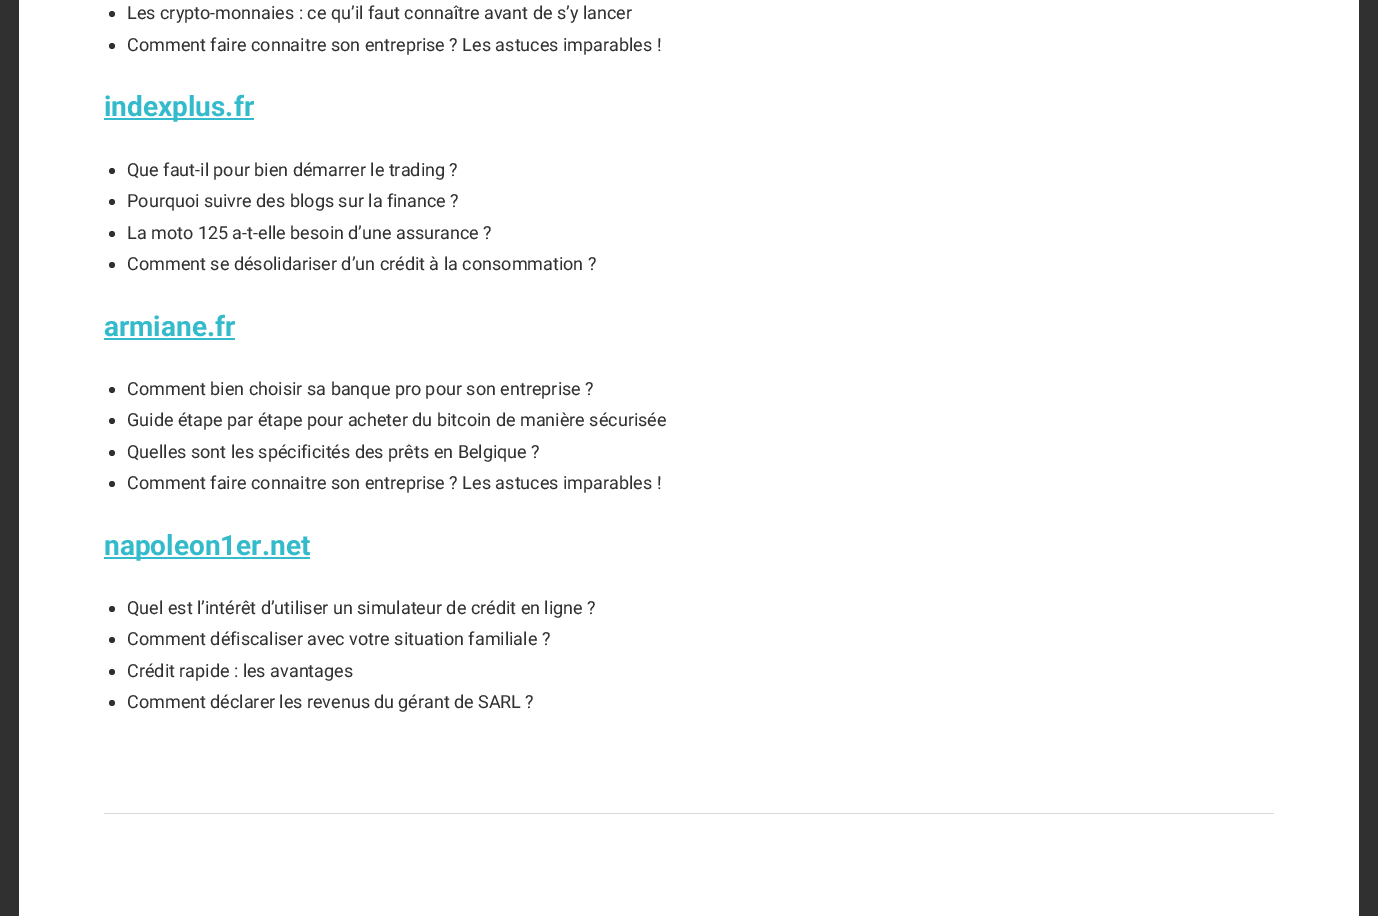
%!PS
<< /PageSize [1378 916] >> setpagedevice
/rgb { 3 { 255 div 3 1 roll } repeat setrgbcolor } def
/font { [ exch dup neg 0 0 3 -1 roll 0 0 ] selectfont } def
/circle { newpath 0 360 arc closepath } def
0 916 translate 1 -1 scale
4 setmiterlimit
48 48 48 rgb
0 0 1378 916 rectfill
255 255 255 rgb
19 0 1340 916 rectfill
48 48 48 rgb
112 14 3 circle fill
112 46 3 circle fill
51 187 204 rgb
104 118 150 2 rectfill
48 48 48 rgb
112 171 3 circle fill
112 202 3 circle fill
112 234 3 circle fill
112 265 3 circle fill
51 187 204 rgb
104 338 131 2 rectfill
48 48 48 rgb
112 390 3 circle fill
112 421 3 circle fill
112 453 3 circle fill
112 484 3 circle fill
51 187 204 rgb
104 557 206 2 rectfill
48 48 48 rgb
112 609 3 circle fill
112 640 3 circle fill
112 672 3 circle fill
112 703 3 circle fill
217 217 217 rgb
104 813 1170 1 rectfill
/Roboto-Regular 18 font
48 48 48 rgb
127 19 moveto (Les crypto-monnaies : ce qu’il faut connaître avant de s’y lancer) show
127 51 moveto (Comment faire connaitre son entreprise ? Les astuces imparables !) show
/Roboto-Bold 28 font
51 187 204 rgb
104 116 moveto (indexplus.fr) show
/Roboto-Regular 18 font
48 48 48 rgb
[
  [(Que faut-il pour bien démarrer le trading ?) 127 176]
  [(Pourquoi suivre des blogs sur la finance ?) 127 207]
  [(La moto 125 a-t-elle besoin d’une assurance ?) 127 239]
  [(Comment se désolidariser d’un crédit à la consommation ?) 127 270]
] { aload pop moveto show } forall
/Roboto-Bold 28 font
51 187 204 rgb
104 336 moveto (armiane.fr) show
/Roboto-Regular 18 font
48 48 48 rgb
[
  [(Comment bien choisir sa banque pro pour son entreprise ?) 127 395]
  [(Guide étape par étape pour acheter du bitcoin de manière sécurisée) 127 426]
  [(Quelles sont les spécificités des prêts en Belgique ?) 127 458]
  [(Comment faire connaitre son entreprise ? Les astuces imparables !) 127 489]
] { aload pop moveto show } forall
/Roboto-Bold 28 font
51 187 204 rgb
104 555 moveto (napoleon1er.net) show
/Roboto-Regular 18 font
48 48 48 rgb
[
  [(Quel est l’intérêt d’utiliser un simulateur de crédit en ligne ?) 127 614]
  [(Comment défiscaliser avec votre situation familiale ?) 127 645]
  [(Crédit rapide : les avantages) 127 677]
] { aload pop moveto show } forall
127 708 moveto -0.25 0 32 (Comment déclarer les revenus du gérant de SARL ?) widthshow
showpage
